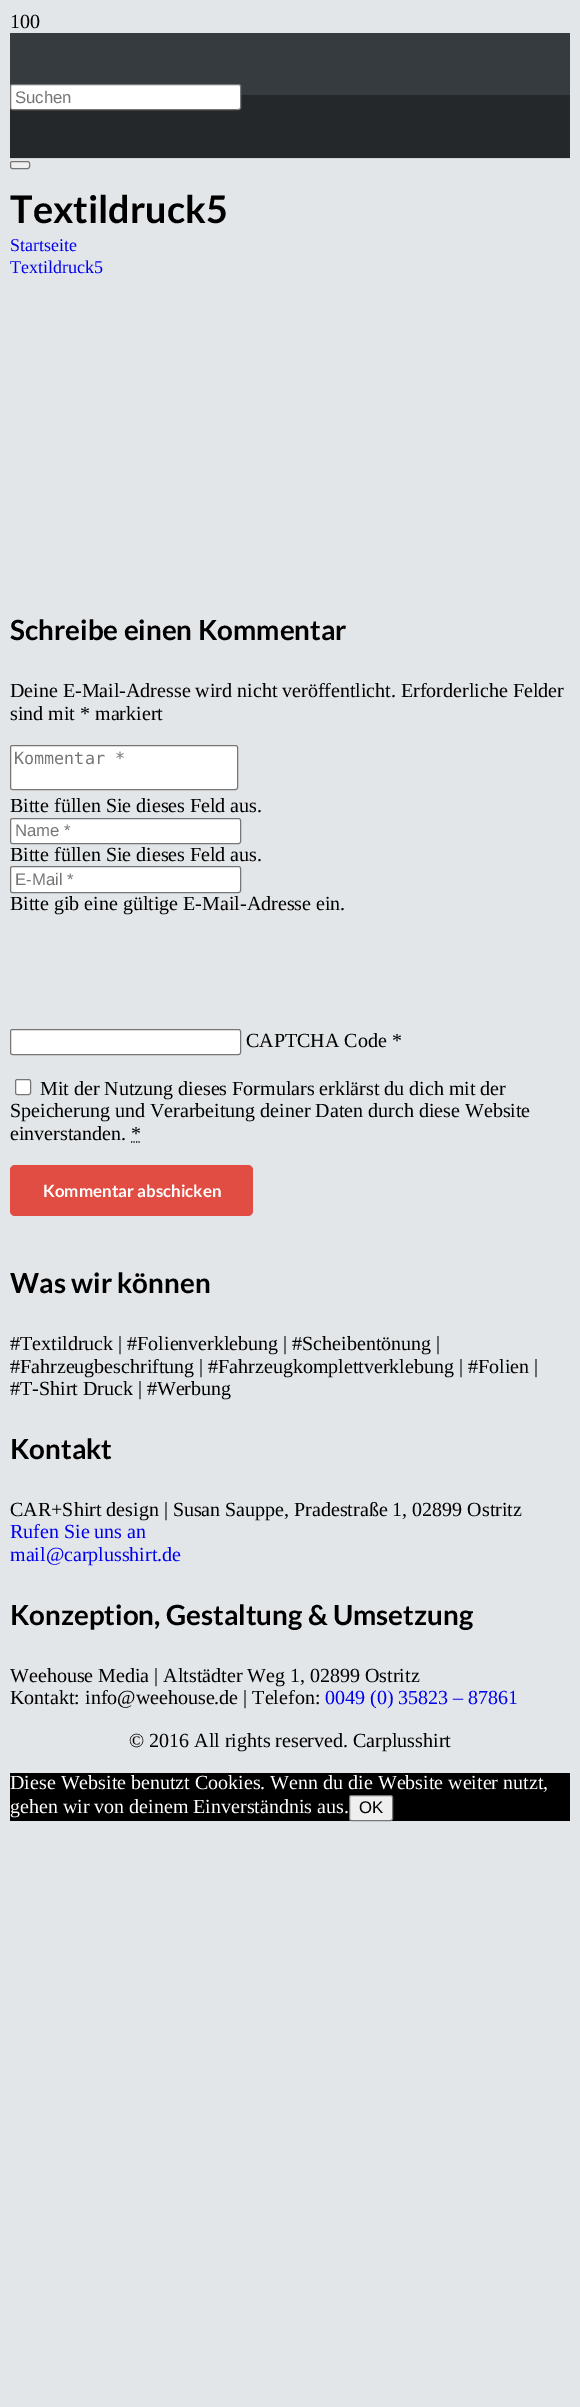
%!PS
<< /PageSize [580 2407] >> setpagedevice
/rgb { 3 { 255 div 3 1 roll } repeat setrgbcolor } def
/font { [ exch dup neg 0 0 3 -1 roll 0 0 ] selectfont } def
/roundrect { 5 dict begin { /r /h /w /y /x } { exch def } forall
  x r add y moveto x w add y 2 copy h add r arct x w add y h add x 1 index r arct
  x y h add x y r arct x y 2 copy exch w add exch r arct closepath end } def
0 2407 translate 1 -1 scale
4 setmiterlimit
227 230 232 rgb
0 0 580 2407 rectfill
[
  [10 33 560 62 54 59 63]
  [10 158 560 1 209 212 213]
  [10 95 560 63 37 40 43]
] { aload pop rgb rectfill } forall
255 255 255 rgb
10.5 84.5 230 25 2 roundrect gsave fill grestore
118 118 118 rgb
stroke
239 239 239 rgb
10.5 161.5 19 7 2 roundrect gsave fill grestore
118 118 118 rgb
stroke
255 255 255 rgb
10.5 745.5 227 44 2 roundrect gsave fill grestore
118 118 118 rgb
stroke
255 255 255 rgb
10.5 818.5 230 25 2 roundrect gsave fill grestore
118 118 118 rgb
stroke
255 255 255 rgb
10.5 866.5 230 26 2 roundrect gsave fill grestore
118 118 118 rgb
stroke
255 255 255 rgb
10.5 1029.5 230 25 2 roundrect gsave fill grestore
118 118 118 rgb
stroke
255 255 255 rgb
15.5 1079.5 15 15 2 roundrect gsave fill grestore
118 118 118 rgb
stroke
0 0 0 rgb
1.2 setlinewidth
[1.25 1.25] 0 setdash
131 1142 moveto 141 1142 lineto stroke
225 77 67 rgb
10 1165 243 51 5 roundrect fill
0 0 0 rgb
10 1773 560 48 rectfill
239 239 239 rgb
349.5 1795.5 43 25 2 roundrect gsave fill grestore
118 118 118 rgb
1 setlinewidth
[] 0 setdash
stroke
/LiberationSerif-Regular 20 font
0 0 0 rgb
10 28 moveto (100) show
/LiberationSans-Regular 16.75 font
117 117 117 rgb
15 103 moveto (Suchen) show
/Lato-Bold 37.5 font
0 0 0 rgb
10 223 moveto (Textildruck5) show
/LiberationSerif-Regular 18 font
0 0 238 rgb
10 251 moveto (Startseite) show
10 273 moveto (Textildruck5) show
/Lato-Bold 27.5 font
0 0 0 rgb
10 640 moveto (Schreibe einen Kommentar) show
/LiberationSerif-Regular 20 font
10 697 moveto (Deine E-Mail-Adresse wird nicht veröffentlicht. Erforderliche Felder) show
10 720 moveto (sind mit * markiert) show
/DejaVuSansMono-Regular 16.75 font
117 117 117 rgb
14 764 moveto (Kommentar *) show
/LiberationSerif-Regular 20 font
0 0 0 rgb
10 812 moveto (Bitte füllen Sie dieses Feld aus.) show
/LiberationSans-Regular 16.75 font
117 117 117 rgb
15 836 moveto (Name *) show
/LiberationSerif-Regular 20 font
0 0 0 rgb
10 861 moveto (Bitte füllen Sie dieses Feld aus.) show
/LiberationSans-Regular 16.75 font
117 117 117 rgb
15 885 moveto (E-Mail *) show
/LiberationSerif-Regular 20 font
0 0 0 rgb
[
  [(Bitte gib eine gültige E-Mail-Adresse ein.) 10 910]
  [(CAPTCHA Code *) 246 1047]
  [(Mit der Nutzung dieses Formulars erklärst du dich mit der) 40 1095]
  [(Speicherung und Verarbeitung deiner Daten durch diese Website) 10 1117]
  [(einverstanden. *) 10 1140]
] { aload pop moveto show } forall
/Lato-Bold 16.75 font
255 255 255 rgb
43 1197 moveto (Kommentar abschicken) show
/Lato-Bold 27.5 font
0 0 0 rgb
10 1293 moveto (Was wir können) show
/LiberationSerif-Regular 20 font
[
  [(#Textildruck | #Folienverklebung | #Scheibentönung |) 10 1350]
  [(#Fahrzeugbeschriftung | #Fahrzeugkomplettverklebung | #Folien |) 10 1373]
  [(#T-Shirt Druck | #Werbung) 10 1395]
] { aload pop moveto show } forall
/Lato-Bold 27.5 font
10 1459 moveto (Kontakt) show
/LiberationSerif-Regular 20 font
10 1516 moveto (CAR+Shirt design | Susan Sauppe, Pradestraße 1, 02899 Ostritz) show
0 0 238 rgb
10 1538 moveto (Rufen Sie uns an) show
10 1561 moveto (mail@carplusshirt.de) show
/Lato-Bold 27.5 font
0 0 0 rgb
10 1625 moveto (Konzeption, Gestaltung & Umsetzung) show
/LiberationSerif-Regular 20 font
10 1682 moveto (Weehouse Media | Altstädter Weg 1, 02899 Ostritz) show
10 1704 moveto (Kontakt: info@weehouse.de | Telefon:) show
0 0 238 rgb
325 1704 moveto (0049 \(0\) 35823 – 87861) show
0 0 0 rgb
129 1747 moveto (© 2016 All rights reserved. Carplusshirt) show
255 255 255 rgb
10 1789 moveto (Diese Website benutzt Cookies. Wenn du die Website weiter nutzt,) show
10 1813 moveto (gehen wir von deinem Einverständnis aus.) show
/LiberationSans-Regular 16.75 font
0 0 0 rgb
359 1813 moveto (OK) show
showpage
